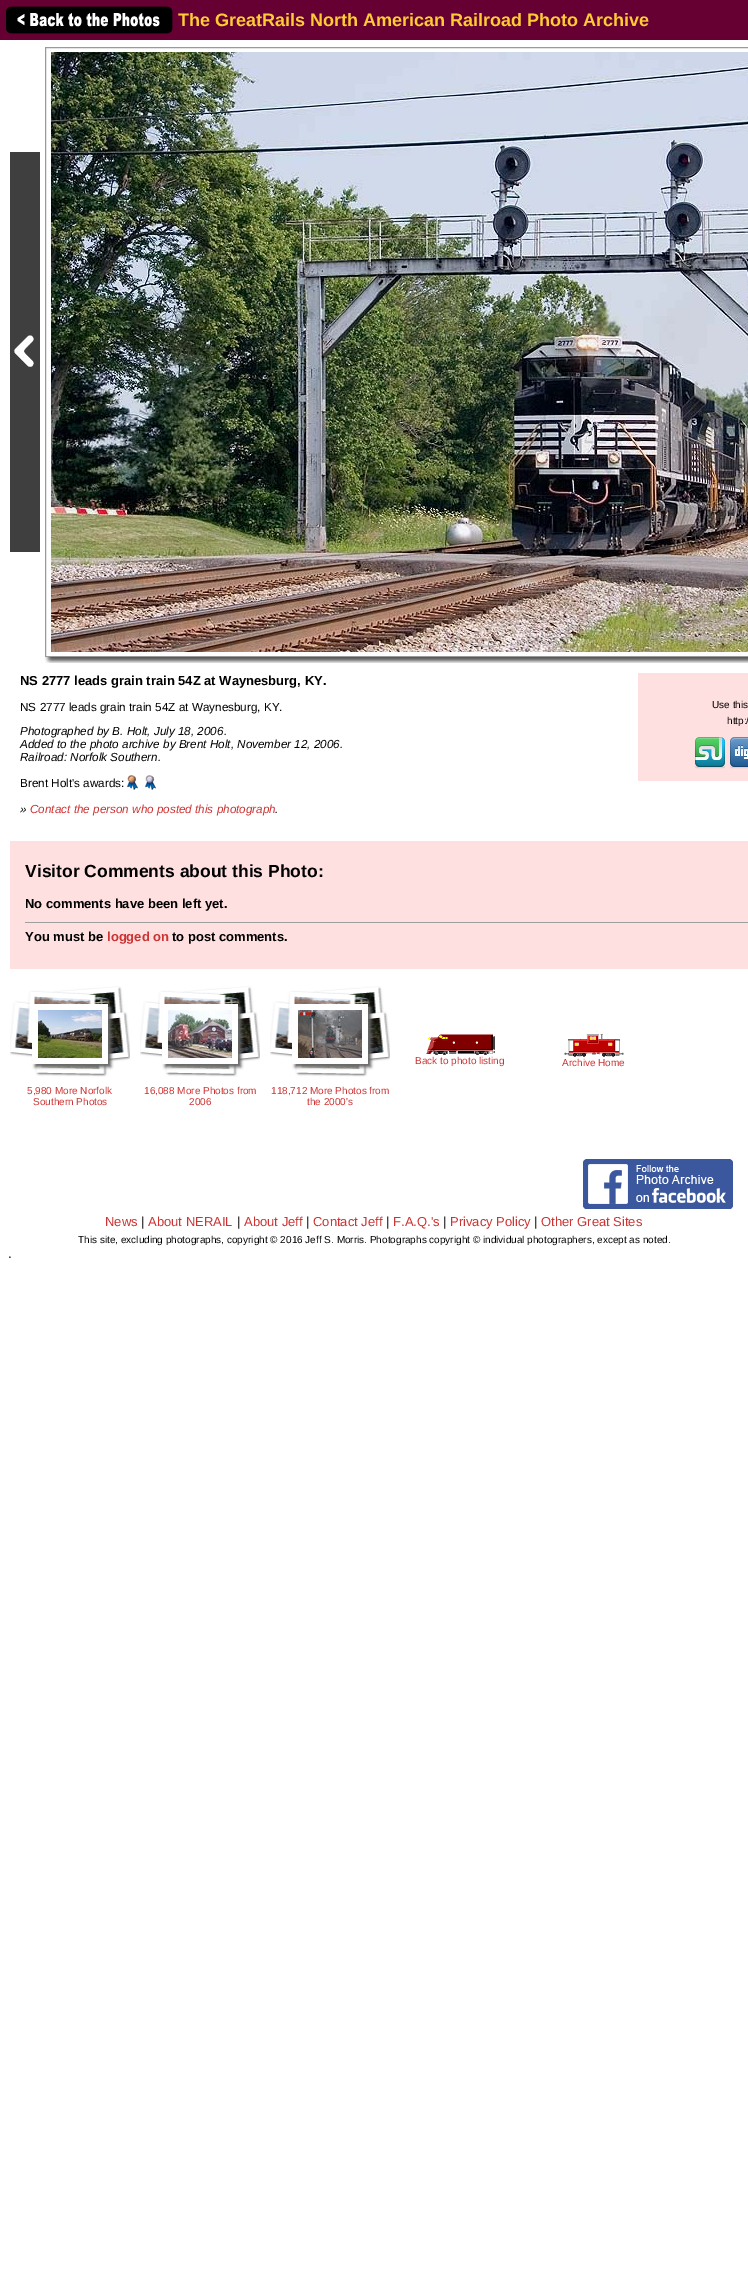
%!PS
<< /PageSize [748 2274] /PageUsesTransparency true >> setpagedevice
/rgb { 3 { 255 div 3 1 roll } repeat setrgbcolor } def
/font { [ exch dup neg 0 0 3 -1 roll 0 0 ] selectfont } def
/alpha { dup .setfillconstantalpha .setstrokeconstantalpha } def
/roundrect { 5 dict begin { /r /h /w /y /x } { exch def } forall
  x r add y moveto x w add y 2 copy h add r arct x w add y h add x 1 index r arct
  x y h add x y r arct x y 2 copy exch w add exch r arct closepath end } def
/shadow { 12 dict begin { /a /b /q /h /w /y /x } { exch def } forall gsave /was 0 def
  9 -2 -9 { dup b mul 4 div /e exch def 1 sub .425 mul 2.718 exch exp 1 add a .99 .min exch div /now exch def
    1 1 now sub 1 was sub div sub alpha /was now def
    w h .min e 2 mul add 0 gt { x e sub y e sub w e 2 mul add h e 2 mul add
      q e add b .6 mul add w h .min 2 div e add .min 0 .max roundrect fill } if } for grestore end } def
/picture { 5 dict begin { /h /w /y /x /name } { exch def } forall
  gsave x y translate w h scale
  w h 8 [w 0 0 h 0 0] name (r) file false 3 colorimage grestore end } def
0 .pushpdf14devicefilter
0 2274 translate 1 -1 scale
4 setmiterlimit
255 255 255 rgb
0 0 748 2274 rectfill
102 0 51 rgb
0 0 748 40 rectfill
(img/1.rgb) 6 6 167 28 picture
(img/2.rgb) 10 152 30 400 picture
154 154 154 rgb
45.5 47.5 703 609 rectstroke
(img/3.rgb) 51 52 697 600 picture
(img/4.rgb) 45 657 703 6 picture
(img/5.rgb) 127 775 11 15 picture
(img/6.rgb) 145 775 11 15 picture
255 224 224 rgb
638 673 110 108 rectfill
(img/7.rgb) 695 737 30 32 picture
(img/8.rgb) 730 737 18 32 picture
10 841 738 128 rectfill
159 159 159 rgb
25 922 723 1 rectfill
(img/9.rgb) 426 1034 69 21 picture
(img/10.rgb) 564 1034 60 23 picture
(img/11.rgb) 10 986 120 91 picture
102 102 102 rgb
35 1007 76 60 0 1.5 1 shadow
255 255 255 rgb
32 1004 76 60 rectfill
(img/12.rgb) 38 1010 64 48 picture
(img/11.rgb) 140 986 120 91 picture
102 102 102 rgb
165 1007 76 60 0 1.5 1 shadow
255 255 255 rgb
162 1004 76 60 rectfill
(img/13.rgb) 168 1010 64 48 picture
(img/11.rgb) 270 986 120 91 picture
102 102 102 rgb
295 1007 76 60 0 1.5 1 shadow
255 255 255 rgb
292 1004 76 60 rectfill
(img/14.rgb) 298 1010 64 48 picture
(img/15.rgb) 583 1159 150 50 picture
/LiberationSans-Bold 18 font
255 204 51 rgb
178 26 moveto (The GreatRails North American Railroad Photo Archive) show
/LiberationSans-Bold 13 font
0 0 0 rgb
20 685 moveto (NS 2777 leads grain train 54Z at Waynesburg, KY.) show
/LiberationSans-Regular 11.7 font
20 711 moveto (NS 2777 leads grain train 54Z at Waynesburg, KY.) show
/LiberationSans-Italic 11.7 font
[
  [(Photographed by B. Holt, July 18, 2006.) 20 735]
  [(Added to the photo archive by Brent Holt, November 12, 2006.) 20 748]
  [(Railroad: Norfolk Southern.) 20 761]
] { aload pop moveto show } forall
/LiberationSans-Regular 11.7 font
20 787 moveto (Brent Holt's awards:) show
/LiberationSans-Italic 11.7 font
20 813 moveto (») show
204 51 51 rgb
30 813 moveto (Contact the person who posted this photograph) show
0 0 0 rgb
275 813 moveto (.) show
/LiberationSans-Regular 10 font
712 708 moveto (Use this) show
727 724 moveto (http:/) show
/LiberationSans-Bold 17.5 font
25 877 moveto (Visitor Comments about this Photo:) show
/LiberationSans-Bold 13 font
25 908 moveto (No comments have been left yet.) show
25 941 moveto (You must be) show
204 51 51 rgb
107 941 moveto (logged on) show
0 0 0 rgb
172 941 moveto (to post comments.) show
/LiberationSans-Regular 10 font
204 51 51 rgb
[
  [(Back to photo listing) 415 1064]
  [(Archive Home) 562 1066]
  [(5,980 More Norfolk) 27 1094]
  [(Southern Photos) 33 1105]
  [(16,088 More Photos from) 144 1094]
  [(2006) 189 1105]
  [(118,712 More Photos from) 271 1094]
  [(the 2000's) 307 1105]
] { aload pop moveto show } forall
/LiberationSans-Regular 13 font
105 1226 moveto (News) show
0 0 0 rgb
141 1226 moveto (|) show
204 51 51 rgb
148 1226 moveto (About NERAIL) show
0 0 0 rgb
237 1226 moveto (|) show
204 51 51 rgb
244 1226 moveto (About Jeff) show
0 0 0 rgb
306 1226 moveto (|) show
204 51 51 rgb
313 1226 moveto (Contact Jeff) show
0 0 0 rgb
386 1226 moveto (|) show
204 51 51 rgb
393 1226 moveto (F.A.Q.'s) show
0 0 0 rgb
443 1226 moveto (|) show
204 51 51 rgb
450 1226 moveto (Privacy Policy) show
0 0 0 rgb
534 1226 moveto (|) show
204 51 51 rgb
541 1226 moveto (Other Great Sites) show
/LiberationSans-Regular 10 font
0 0 0 rgb
78 1243 moveto (This site, excluding photographs, copyright © 2016 Jeff S. Morris. Photographs copyright © individual photographers, except as noted.) show
/LiberationSans-Regular 14 font
8 1258 moveto (.) show
.poppdf14devicefilter showpage
